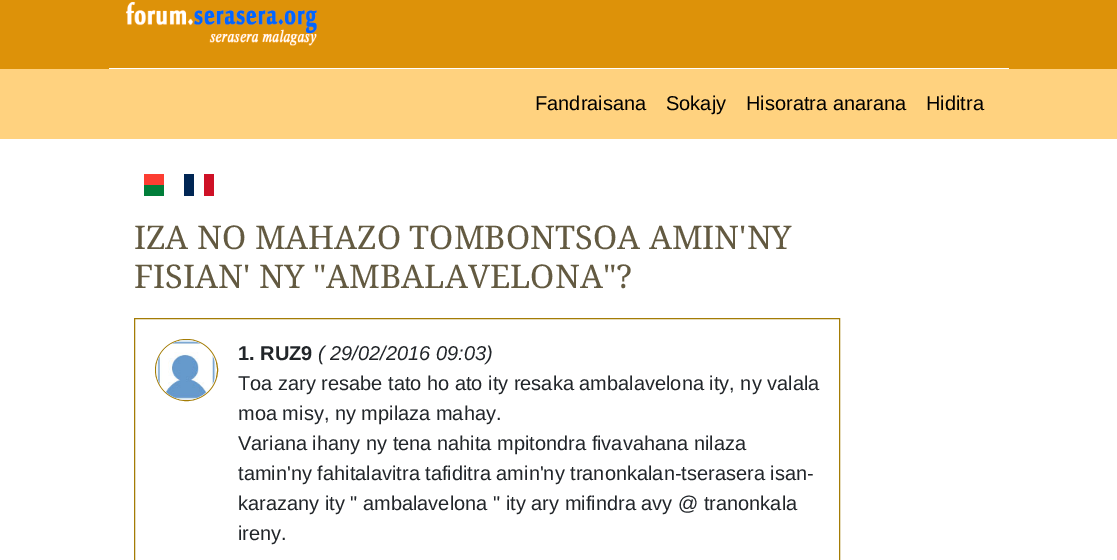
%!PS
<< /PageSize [1117 560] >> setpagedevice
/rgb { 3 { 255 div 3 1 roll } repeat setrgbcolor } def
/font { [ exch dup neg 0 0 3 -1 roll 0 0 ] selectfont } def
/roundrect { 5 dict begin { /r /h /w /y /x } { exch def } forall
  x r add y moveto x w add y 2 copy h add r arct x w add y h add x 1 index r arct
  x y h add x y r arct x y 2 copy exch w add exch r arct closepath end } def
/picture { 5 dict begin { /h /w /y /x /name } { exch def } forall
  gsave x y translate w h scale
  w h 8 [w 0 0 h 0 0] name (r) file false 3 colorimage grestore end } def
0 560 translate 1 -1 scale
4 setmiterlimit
255 255 255 rgb
0 0 1117 560 rectfill
221 146 9 rgb
0 0 1117 69 rectfill
255 255 255 rgb
109 68 900 1 rectfill
(img/1.rgb) 125 1 193 45 picture
[
  [0 69 1117 70 255 210 127]
  [144 174 20 11 252 61 50]
  [144 185 20 11 0 126 58]
  [184 174 10 22 0 38 84]
  [204 174 10 22 206 17 38]
] { aload pop rgb rectfill } forall
164 124 5 rgb
134.5 318.5 705 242 rectstroke
155.5 339.5 62 61 30.5 roundrect stroke
(img/2.rgb) 156 340 60 60 picture
/LiberationSans-Regular 20 font
0 0 0 rgb
[
  [(Fandraisana) 535 110]
  [(Sokajy) 666 110]
  [(Hisoratra anarana) 746 110]
  [(Hiditra) 926 110]
] { aload pop moveto show } forall
/DroidSerif-Regular 32.7 font
99 90 65 rgb
134 249 moveto (IZA NO MAHAZO TOMBONTSOA AMIN'NY) show
134 288 moveto (FISIAN' NY "AMBALAVELONA"?) show
/LiberationSans-Bold 20 font
33 37 41 rgb
238 360 moveto (1. RUZ9) show
/LiberationSans-Italic 20 font
318 360 moveto (\( 29/02/2016 09:03\)) show
/LiberationSans-Regular 20 font
[
  [(Toa zary resabe tato ho ato ity resaka ambalavelona ity, ny valala) 238 390]
  [(moa misy, ny mpilaza mahay.) 238 420]
  [(Variana ihany ny tena nahita mpitondra fivavahana nilaza) 238 450]
  [(tamin'ny fahitalavitra tafiditra amin'ny tranonkalan-tserasera isan-) 238 480]
  [(karazany ity " ambalavelona " ity ary mifindra avy @ tranonkala) 238 510]
  [(ireny.) 238 540]
] { aload pop moveto show } forall
showpage
